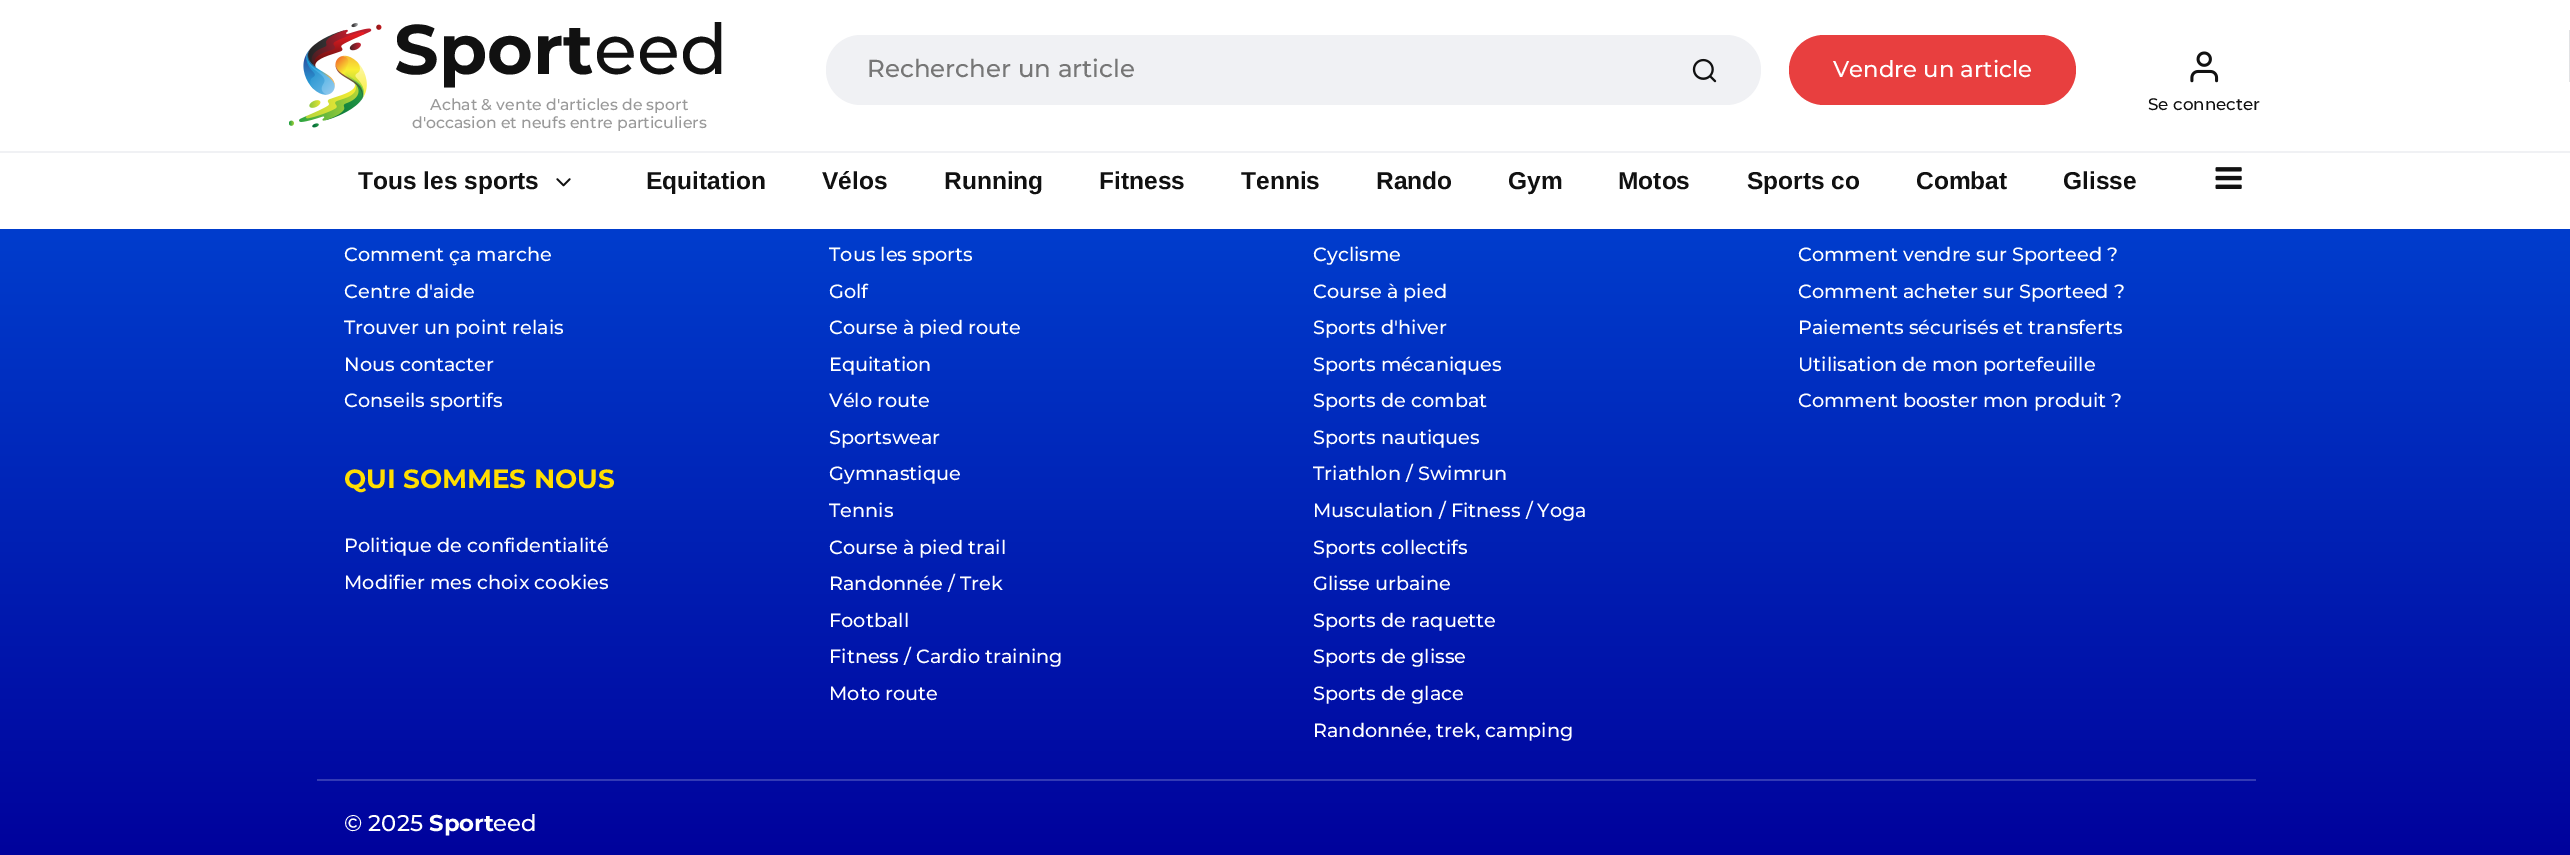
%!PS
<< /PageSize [2570 855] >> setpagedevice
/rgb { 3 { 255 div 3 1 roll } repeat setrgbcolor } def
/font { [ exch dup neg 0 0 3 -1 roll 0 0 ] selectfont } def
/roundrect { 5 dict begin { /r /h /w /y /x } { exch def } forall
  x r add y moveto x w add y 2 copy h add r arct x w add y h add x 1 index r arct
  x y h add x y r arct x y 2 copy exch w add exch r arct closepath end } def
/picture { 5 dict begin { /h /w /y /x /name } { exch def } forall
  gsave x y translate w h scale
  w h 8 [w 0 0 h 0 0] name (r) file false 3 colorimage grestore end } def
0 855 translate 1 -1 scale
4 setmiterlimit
255 255 255 rgb
0 0 2570 855 rectfill
(img/1.rgb) 289 23 93 105 picture
240 241 244 rgb
861 35 moveto 1650 35 lineto 1650 105 lineto 861 105 lineto 841.5 105 826 89.5 826 70 curveto 826 50.5 841.5 35 861 35 curveto closepath fill
1649 35 moveto 1726 35 lineto 1745.5 35 1761 50.5 1761 70 curveto 1761 89.5 1745.5 105 1726 105 curveto 1649 105 lineto closepath fill
(img/2.rgb) 1692 58 25 25 picture
232 63 63 rgb
1789 35 287 70 35 roundrect fill
225 226 228 rgb
2569 30 1 52 rectfill
(img/3.rgb) 2190 51 29 32 picture
240 241 244 rgb
0 151 2570 2 rectfill
(img/4.rgb) 556 178 15 9 picture
(img/5.rgb) 2215 167 27 22 picture
gsave 0 229 moveto 2570 229 lineto 2570 855 lineto 0 855 lineto closepath clip newpath
<< /ShadingType 2 /ColorSpace /DeviceRGB /Coords [1285 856 1285 -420] /Extend [true true] /Function << /FunctionType 2 /Domain [0 1] /C0 [0 0.008 0.612] /C1 [0 0.482 1] /N 1 >> >> shfill grestore
51 58 181 rgb
317 779 1939 2 rectfill
/Montserrat-Bold 70 font
17 17 17 rgb
394 74 moveto (Sport) show
/Montserrat-Medium 70 font
594 74 moveto (eed) show
/Montserrat-Medium 15.75 font
153 153 153 rgb
430 110 moveto (Achat & vente d'articles de sport) show
412 128 moveto (d'occasion et neufs entre particuliers) show
/Montserrat-Medium 24.5 font
118 118 118 rgb
867 77 moveto (Rechercher un article) show
/Montserrat-Medium 22.75 font
255 255 255 rgb
1833 77 moveto (Vendre un article) show
/Montserrat-Medium 16.75 font
17 17 17 rgb
2148 110 moveto (Se connecter) show
/LiberationSans-Bold 24.5 font
[
  [(Tous les sports) 358 189]
  [(Equitation) 646 189]
  [(Vélos) 822 189]
  [(Running) 944 189]
  [(Fitness) 1099 189]
  [(Tennis) 1241 189]
  [(Rando) 1376 189]
  [(Gym) 1508 189]
  [(Motos) 1618 189]
  [(Sports co) 1747 189]
  [(Combat) 1916 189]
  [(Glisse) 2063 189]
] { aload pop moveto show } forall
/Montserrat-Medium 19.25 font
255 255 255 rgb
[
  [(Comment ça marche) 344 261]
  [(Centre d'aide) 344 298]
  [(Trouver un point relais) 344 334]
  [(Nous contacter) 344 371]
  [(Conseils sportifs) 344 407]
] { aload pop moveto show } forall
/Montserrat-Bold 26.25 font
255 222 0 rgb
344 488 moveto (QUI SOMMES NOUS) show
/Montserrat-Medium 19.25 font
255 255 255 rgb
[
  [(Politique de confidentialité) 344 552]
  [(Modifier mes choix cookies) 344 589]
  [(Tous les sports) 829 261]
  [(Golf) 829 298]
  [(Course à pied route) 829 334]
  [(Equitation) 829 371]
  [(Vélo route) 829 407]
  [(Sportswear) 829 444]
  [(Gymnastique) 829 480]
  [(Tennis) 829 517]
  [(Course à pied trail) 829 554]
  [(Randonnée / Trek) 829 590]
  [(Football) 829 627]
  [(Fitness / Cardio training) 829 663]
  [(Moto route) 829 700]
  [(Cyclisme) 1313 261]
  [(Course à pied) 1313 298]
  [(Sports d'hiver) 1313 334]
  [(Sports mécaniques) 1313 371]
  [(Sports de combat) 1313 407]
  [(Sports nautiques) 1313 444]
  [(Triathlon / Swimrun) 1313 480]
  [(Musculation / Fitness / Yoga) 1313 517]
  [(Sports collectifs) 1313 554]
  [(Glisse urbaine) 1313 590]
  [(Sports de raquette) 1313 627]
  [(Sports de glisse) 1313 663]
  [(Sports de glace) 1313 700]
  [(Randonnée, trek, camping) 1313 737]
  [(Comment vendre sur Sporteed ?) 1798 261]
  [(Comment acheter sur Sporteed ?) 1798 298]
  [(Paiements sécurisés et transferts) 1798 334]
  [(Utilisation de mon portefeuille) 1798 371]
  [(Comment booster mon produit ?) 1798 407]
] { aload pop moveto show } forall
/Montserrat-Medium 22.75 font
344 831 moveto (© 2025) show
/Montserrat-Bold 22.75 font
429 831 moveto (Sport) show
/Montserrat-Medium 22.75 font
493 831 moveto (eed) show
showpage
